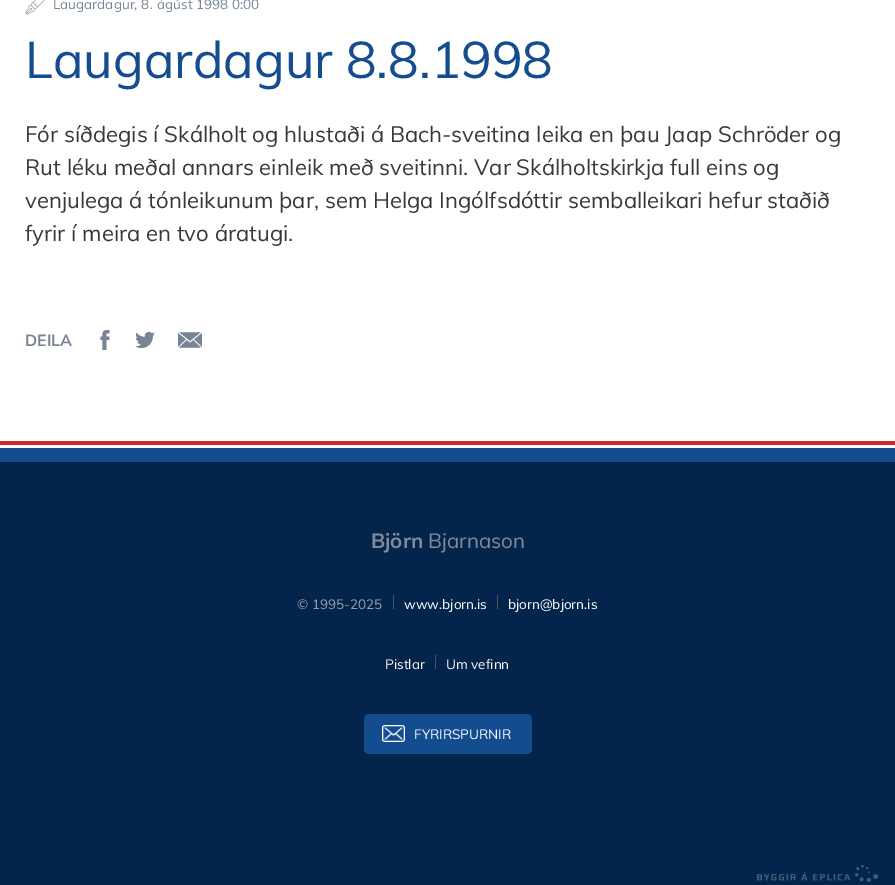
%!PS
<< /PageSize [895 885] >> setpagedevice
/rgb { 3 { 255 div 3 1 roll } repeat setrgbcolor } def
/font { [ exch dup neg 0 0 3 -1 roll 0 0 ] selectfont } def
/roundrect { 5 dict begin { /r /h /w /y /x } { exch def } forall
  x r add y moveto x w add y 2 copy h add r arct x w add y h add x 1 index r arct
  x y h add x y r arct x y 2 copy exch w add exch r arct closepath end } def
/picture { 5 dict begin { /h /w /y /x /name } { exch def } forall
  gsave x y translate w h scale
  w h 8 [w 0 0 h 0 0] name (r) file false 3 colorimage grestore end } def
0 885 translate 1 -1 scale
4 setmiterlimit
255 255 255 rgb
0 0 895 885 rectfill
(img/1.rgb) 25 0 20 15 picture
(img/2.rgb) 100 330 10 20 picture
(img/3.rgb) 135 331 20 18 picture
(img/4.rgb) 178 332 24 16 picture
[
  [0 462 895 423 4 37 75]
  [0 441 895 4 208 38 38]
  [0 448 895 14 19 77 143]
  [393 595 1 14 73 84 103]
  [497 595 1 14 73 84 103]
  [435 655 1 14 73 84 103]
] { aload pop rgb rectfill } forall
19 77 143 rgb
364 714 168 40 5 roundrect fill
(img/5.rgb) 382 725 23 17 picture
(img/6.rgb) 757 865 121 17 picture
/Muli-Regular 13.5 font
118 132 149 rgb
53 9 moveto (Laugardagur, 8) show
/Muli-Italic 13.5 font
150 9 moveto (.) show
/Muli-Regular 13.5 font
157 9 moveto (ágúst 1998 0:00) show
/Muli-Regular 51 font
19 77 143 rgb
25 78 moveto (Laugardagur 8.8.1998) show
/Muli-Regular 22.1 font
56 56 56 rgb
[
  [(Fór síðdegis í Skálholt og hlustaði á Bach-sveitina leika en þau Jaap Schröder og) 25 142]
  [(Rut léku meðal annars einleik með sveitinni. Var Skálholtskirkja full eins og) 25 175]
  [(venjulega á tónleikunum þar, sem Helga Ingólfsdóttir semballeikari hefur staðið) 25 208]
  [(fyrir í meira en tvo áratugi.) 25 241]
] { aload pop moveto show } forall
/Muli-Bold 16 font
118 132 149 rgb
25 346 moveto (DEILA) show
/Muli-Bold 20.5 font
127 138 157 rgb
371 548 moveto (Björn) show
/Muli-Regular 20.5 font
428 548 moveto (Bjarnason) show
/Muli-Regular 13.5 font
153 160 171 rgb
297 609 moveto (© 1995-2025) show
255 255 255 rgb
[
  [(www.bjorn.is) 404 609]
  [(bjorn@bjorn.is) 508 609]
  [(Pistlar) 385 669]
  [(Um vefinn) 446 669]
  [(FYRIRSPURNIR) 414 739]
] { aload pop moveto show } forall
showpage
